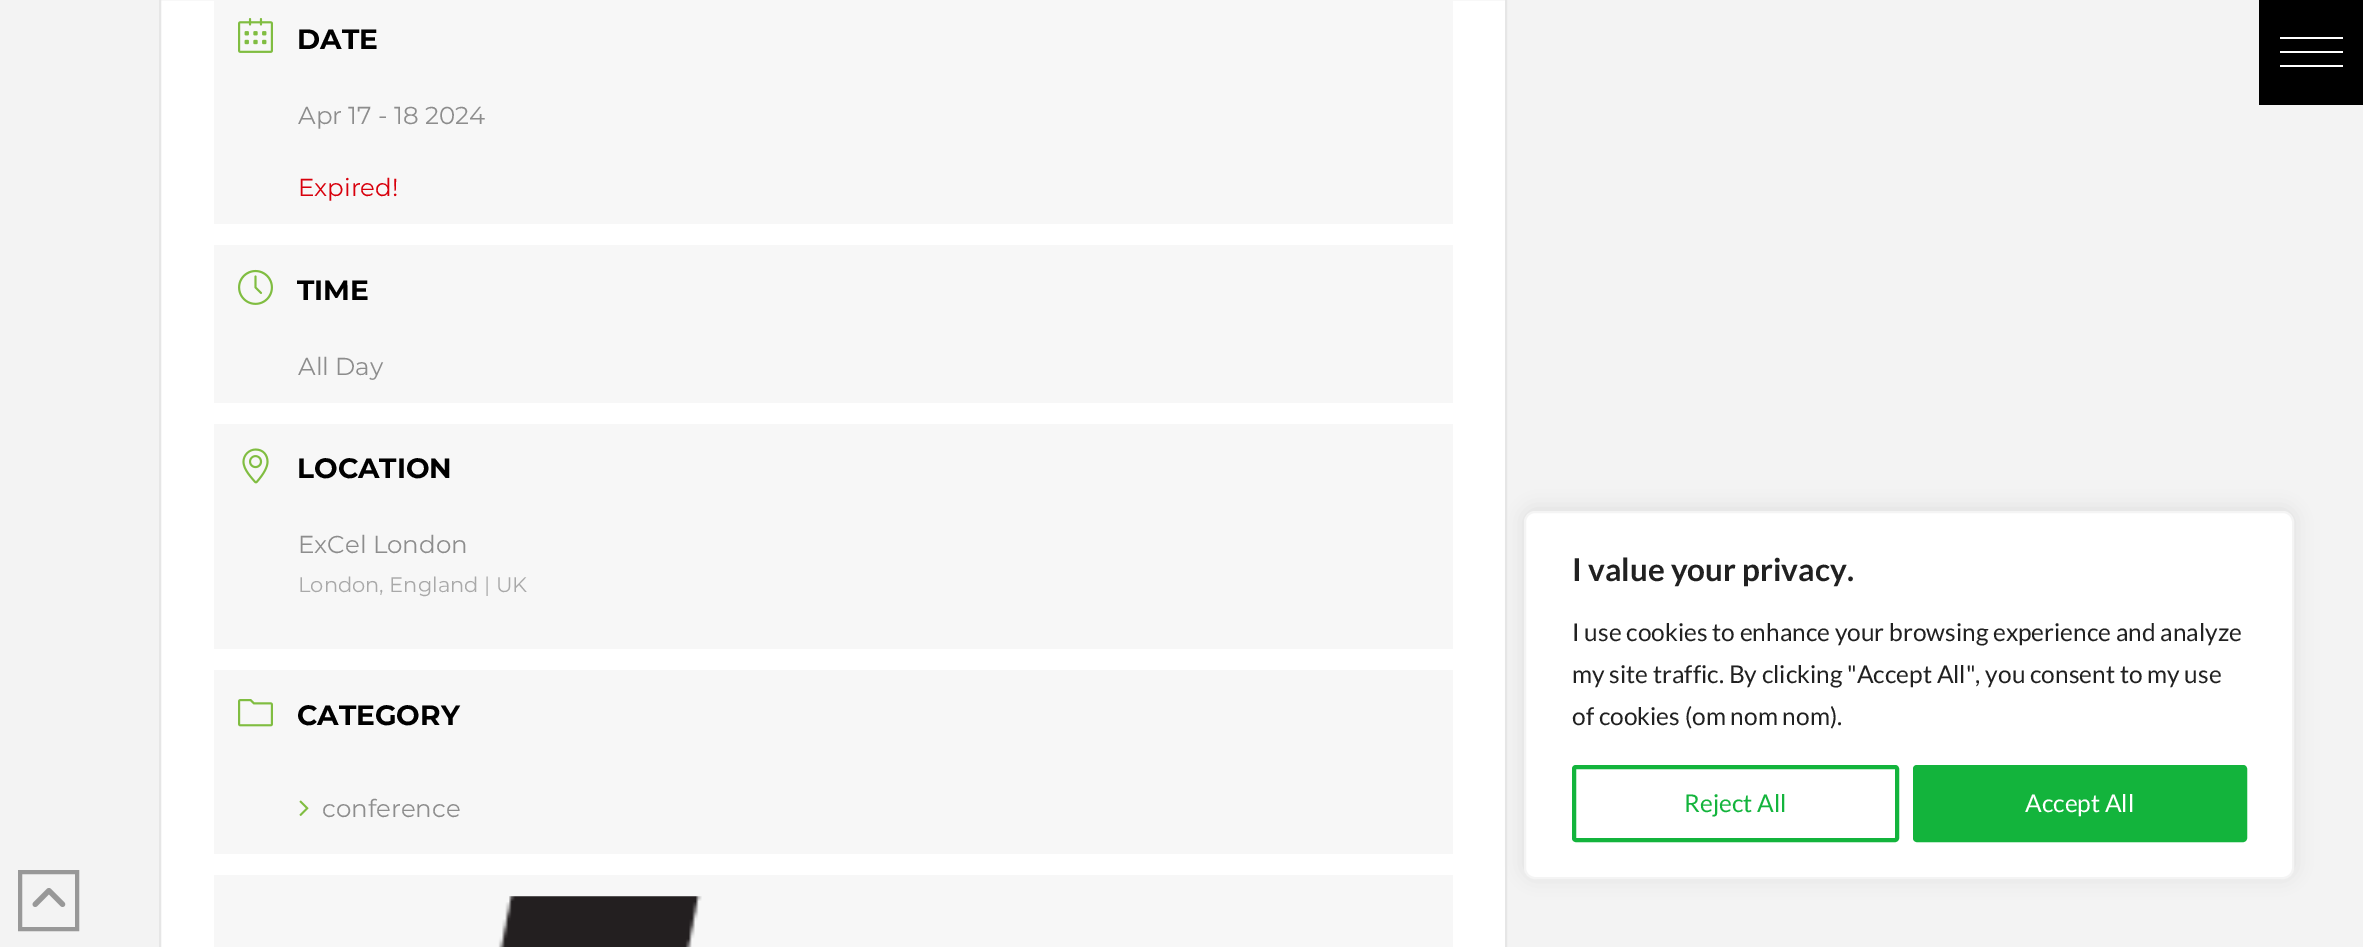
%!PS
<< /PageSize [2363 947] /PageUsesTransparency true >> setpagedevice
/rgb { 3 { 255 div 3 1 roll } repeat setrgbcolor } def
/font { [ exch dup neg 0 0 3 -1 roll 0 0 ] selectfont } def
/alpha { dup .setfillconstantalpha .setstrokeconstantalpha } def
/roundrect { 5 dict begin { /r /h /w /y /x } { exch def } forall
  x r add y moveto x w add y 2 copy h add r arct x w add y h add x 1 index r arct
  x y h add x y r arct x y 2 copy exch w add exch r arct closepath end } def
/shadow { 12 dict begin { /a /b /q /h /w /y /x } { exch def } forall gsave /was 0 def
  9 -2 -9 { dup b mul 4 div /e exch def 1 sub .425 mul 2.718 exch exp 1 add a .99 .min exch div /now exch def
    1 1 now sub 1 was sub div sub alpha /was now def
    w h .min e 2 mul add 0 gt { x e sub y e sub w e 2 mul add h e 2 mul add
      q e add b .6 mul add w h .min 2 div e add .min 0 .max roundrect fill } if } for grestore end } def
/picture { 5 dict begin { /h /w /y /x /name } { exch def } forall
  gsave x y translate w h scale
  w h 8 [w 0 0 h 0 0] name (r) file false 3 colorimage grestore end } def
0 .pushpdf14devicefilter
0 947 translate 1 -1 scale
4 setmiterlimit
243 243 243 rgb
0 0 2363 947 rectfill
255 255 255 rgb
160 -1 moveto 1506 -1 lineto 1506 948 lineto 160 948 lineto closepath gsave fill grestore
230 230 230 rgb
2 setlinewidth
stroke
247 247 247 rgb
214 0 1239 224 rectfill
(img/1.rgb) 238 18 35 35 picture
214 245 1239 158 rectfill
(img/2.rgb) 238 269 35 36 picture
214 424 1239 225 rectfill
(img/3.rgb) 242 448 27 36 picture
214 670 1239 184 rectfill
(img/4.rgb) 238 699 35 28 picture
(img/5.rgb) 299 800 10 16 picture
214 875 1239 72 rectfill
(img/6.rgb) 498 896 204 51 picture
152 152 152 rgb
4 setlinewidth
20 872 57 57 rectstroke
(img/7.rgb) 32 888 34 19 picture
172 171 171 rgb
1524 509 770 368 11 9 0.3 shadow
255 255 255 rgb
1525 512 768 366 10 roundrect gsave fill grestore
244 244 244 rgb
2 setlinewidth
stroke
19 180 60 rgb
4 setlinewidth
1574 767 323 73 2 roundrect stroke
1915 767 330 73 2 roundrect gsave fill grestore
stroke
[
  [2259 0 104 105 0 0 0]
  [2280 51 63 2 255 255 255]
  [2280 37 63 2 255 255 255]
  [2280 65 63 2 255 255 255]
] { aload pop rgb rectfill } forall
/Montserrat-Bold 28 font
0 0 0 rgb
297 49 moveto (DATE) show
/Montserrat-Regular 24.5 font
141 141 141 rgb
298 124 moveto (Apr 17 - 18 2024) show
216 0 12 rgb
298 196 moveto (Expired!) show
/Montserrat-Bold 28 font
0 0 0 rgb
297 300 moveto (TIME) show
/Montserrat-Regular 24.5 font
141 141 141 rgb
298 375 moveto (All Day) show
/Montserrat-Bold 28 font
0 0 0 rgb
297 478 moveto (LOCATION) show
/Montserrat-Regular 24.5 font
141 141 141 rgb
298 553 moveto (ExCel London) show
/Montserrat-Regular 21 font
169 169 169 rgb
298 592 moveto (London, England | UK) show
/Montserrat-Bold 28 font
0 0 0 rgb
297 725 moveto (CATEGORY) show
/Montserrat-Regular 24.5 font
141 141 141 rgb
322 817 moveto (conference) show
/Lato-Bold 31.5 font
33 33 33 rgb
1572 581 moveto (I value your privacy.) show
/Lato-Regular 24.5 font
[
  [(I use cookies to enhance your browsing experience and analyze) 1572 641]
  [(my site traffic. By clicking "Accept All", you consent to my use) 1572 683]
  [(of cookies \(om nom nom\).) 1572 725]
] { aload pop moveto show } forall
19 180 60 rgb
1684 812 moveto (Reject All) show
255 255 255 rgb
2025 812 moveto (Accept All) show
.poppdf14devicefilter showpage
